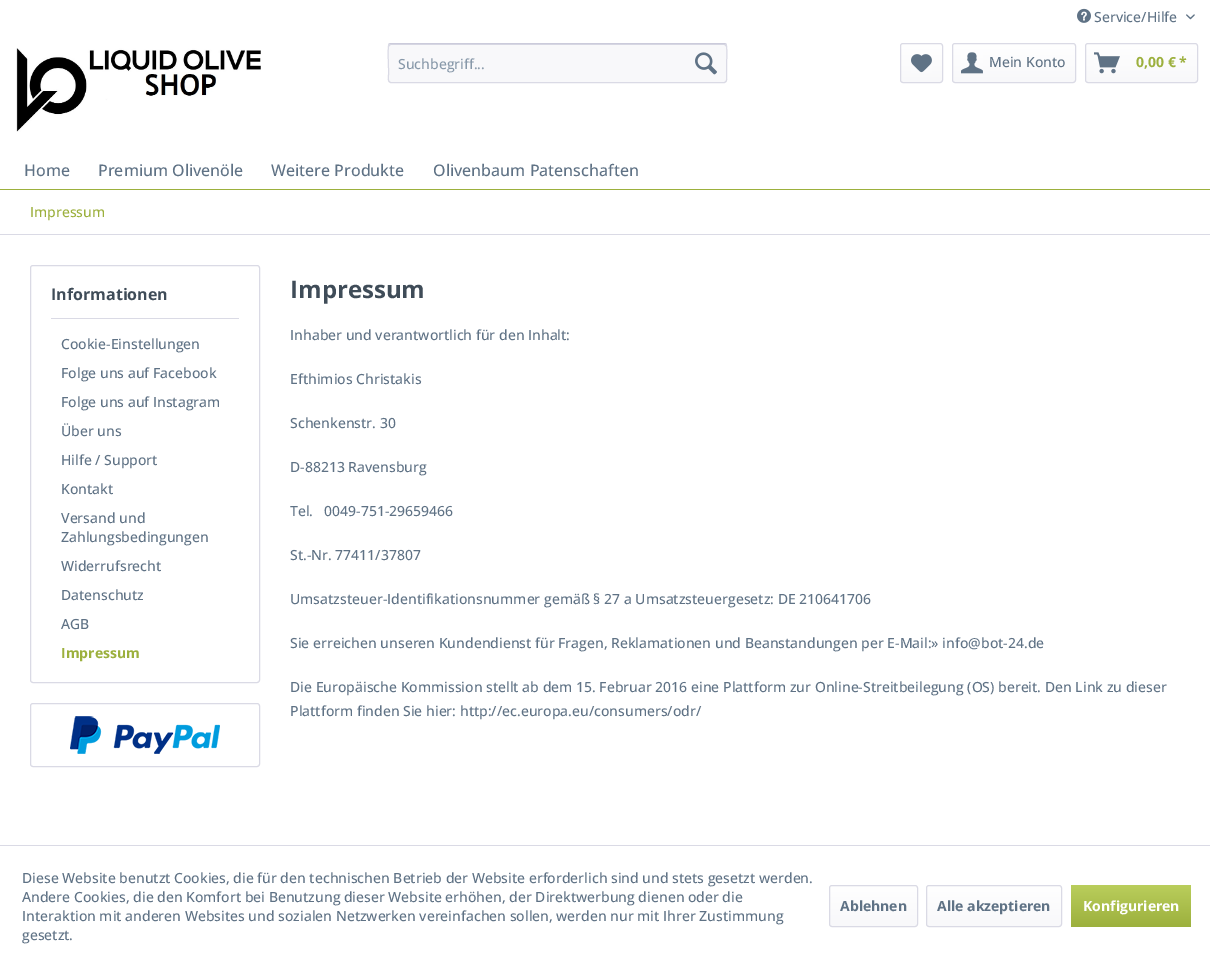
%!PS
<< /PageSize [1210 966] >> setpagedevice
/rgb { 3 { 255 div 3 1 roll } repeat setrgbcolor } def
/font { [ exch dup neg 0 0 3 -1 roll 0 0 ] selectfont } def
/roundrect { 5 dict begin { /r /h /w /y /x } { exch def } forall
  x r add y moveto x w add y 2 copy h add r arct x w add y h add x 1 index r arct
  x y h add x y r arct x y 2 copy exch w add exch r arct closepath end } def
/picture { 5 dict begin { /h /w /y /x /name } { exch def } forall
  gsave x y translate w h scale
  w h 8 [w 0 0 h 0 0] name (r) file false 3 colorimage grestore end } def
0 966 translate 1 -1 scale
4 setmiterlimit
255 255 255 rgb
0 0 1210 966 rectfill
(img/1.rgb) 1077 8 14 15 picture
(img/2.rgb) 1186 14 9 6 picture
(img/3.rgb) 16 48 245 84 picture
248 248 250 rgb
388 43 339 40 3 roundrect fill
218 218 229 rgb
391 45 moveto 724 45 lineto 725 45 726 46 726 47 curveto 726 46 726 44 724 44 curveto 391 44 lineto 389 45 lineto 389 47 lineto 389 46 390 45 391 45 curveto closepath fill
203 203 219 rgb
389 44 moveto 391 43.5 lineto 724 43.5 lineto 726 44 lineto stroke
218 218 229 rgb
726 44 moveto 727.5 46 726.5 65 726.5 68.5 curveto 726.5 74.5 lineto 726.5 76 728 82.5 724 82.5 curveto 391 82.5 lineto 387 82.5 388.5 76 388.5 74.5 curveto 388.5 68.5 lineto 388.5 65 387.5 46 389 44 curveto stroke
(img/4.rgb) 695 52 22 23 picture
gsave 901 44 41 38 2 roundrect clip newpath
<< /ShadingType 2 /ColorSpace /DeviceRGB /Coords [922 44 922 82] /Extend [true true] /Function << /FunctionType 2 /Domain [0 1] /C0 [1 1 1] /C1 [0.973 0.973 0.98] /N 1 >> >> shfill grestore
900.5 43.5 42 39 2.5 roundrect stroke
(img/5.rgb) 911 54 21 19 picture
gsave 953 44 122 38 2 roundrect clip newpath
<< /ShadingType 2 /ColorSpace /DeviceRGB /Coords [1014 44 1014 82] /Extend [true true] /Function << /FunctionType 2 /Domain [0 1] /C0 [1 1 1] /C1 [0.973 0.973 0.98] /N 1 >> >> shfill grestore
952.5 43.5 123 39 2.5 roundrect stroke
(img/6.rgb) 961 52 22 22 picture
gsave 1086 44 111 38 2 roundrect clip newpath
<< /ShadingType 2 /ColorSpace /DeviceRGB /Coords [1142 44 1142 82] /Extend [true true] /Function << /FunctionType 2 /Domain [0 1] /C0 [1 1 1] /C1 [0.973 0.973 0.98] /N 1 >> >> shfill grestore
1085.5 43.5 112 39 2.5 roundrect stroke
(img/7.rgb) 1094 52 26 22 picture
156 176 61 rgb
0 189 1210 1 rectfill
218 218 229 rgb
0 234 1210 1 rectfill
30.5 265.5 229 417 2.5 roundrect stroke
51 318 188 1 rectfill
30.5 703.5 229 63 2.5 roundrect stroke
(img/8.rgb) 70 716 150 38 picture
0 845 1210 1 rectfill
gsave 830 886 87 40 2 roundrect clip newpath
<< /ShadingType 2 /ColorSpace /DeviceRGB /Coords [874 886 874 926] /Extend [true true] /Function << /FunctionType 2 /Domain [0 1] /C0 [1 1 1] /C1 [0.973 0.973 0.98] /N 1 >> >> shfill grestore
829.5 885.5 88 41 2.5 roundrect stroke
gsave 927 886 134 40 2 roundrect clip newpath
<< /ShadingType 2 /ColorSpace /DeviceRGB /Coords [994 886 994 926] /Extend [true true] /Function << /FunctionType 2 /Domain [0 1] /C0 [1 1 1] /C1 [0.973 0.973 0.98] /N 1 >> >> shfill grestore
926.5 885.5 135 41 2.5 roundrect stroke
gsave 1071 885 120 42 3 roundrect clip newpath
<< /ShadingType 2 /ColorSpace /DeviceRGB /Coords [1131 885 1131 927] /Extend [true true] /Function << /FunctionType 2 /Domain [0 1] /C0 [0.729 0.808 0.361] /C1 [0.612 0.69 0.239] /N 1 >> >> shfill grestore
/OpenSans-Medium 14 font
95 114 133 rgb
1094 22 moveto (Service/Hilfe) show
135 152 169 rgb
398 69 moveto (Suchbegriff...) show
95 114 133 rgb
989 67 moveto (Mein Konto) show
/OpenSans-Bold 14 font
156 176 61 rgb
1136 67 moveto (0,00 € *) show
/OpenSans-Medium 16 font
95 114 133 rgb
[
  [(Home) 24 176]
  [(Premium Olivenöle) 98 176]
  [(Weitere Produkte) 271 176]
  [(Olivenbaum Patenschaften) 433 176]
] { aload pop moveto show } forall
/OpenSans-Medium 14 font
156 176 61 rgb
30 217 moveto (Impressum) show
/OpenSans-Bold 16 font
63 76 88 rgb
51 300 moveto (Informationen) show
/OpenSans-Medium 14 font
95 114 133 rgb
[
  [(Cookie-Einstellungen) 61 349]
  [(Folge uns auf Facebook) 61 378]
  [(Folge uns auf Instagram) 61 407]
  [(Über uns) 61 436]
  [(Hilfe / Support) 61 465]
  [(Kontakt) 61 494]
  [(Versand und) 61 523]
  [(Zahlungsbedingungen) 61 542]
  [(Widerrufsrecht) 61 571]
  [(Datenschutz) 61 600]
  [(AGB) 61 629]
] { aload pop moveto show } forall
/OpenSans-Bold 14 font
156 176 61 rgb
61 658 moveto (Impressum) show
/OpenSans-Bold 24 font
63 76 88 rgb
290 298 moveto (Impressum) show
/OpenSans-Medium 14 font
95 114 133 rgb
[
  [(Inhaber und verantwortlich für den Inhalt:) 290 340]
  [(Efthimios Christakis) 290 384]
  [(Schenkenstr. 30) 290 428]
  [(D-88213 Ravensburg) 290 472]
  [(Tel.   0049-751-29659466) 290 516]
  [(St.-Nr. 77411/37807) 290 560]
  [(Umsatzsteuer-Identifikationsnummer gemäß § 27 a Umsatzsteuergesetz: DE 210641706) 290 604]
  [(Sie erreichen unseren Kundendienst für Fragen, Reklamationen und Beanstandungen per E-Mail:» info@bot-24.de) 290 648]
  [(Die Europäische Kommission stellt ab dem 15. Februar 2016 eine Plattform zur Online-Streitbeilegung \(OS\) bereit. Den Link zu dieser) 290 692]
  [(Plattform finden Sie hier: http://ec.europa.eu/consumers/odr/) 290 716]
  [(Diese Website benutzt Cookies, die für den technischen Betrieb der Website erforderlich sind und stets gesetzt werden.) 22 883]
  [(Andere Cookies, die den Komfort bei Benutzung dieser Website erhöhen, der Direktwerbung dienen oder die) 22 902]
  [(Interaktion mit anderen Websites und sozialen Netzwerken vereinfachen sollen, werden nur mit Ihrer Zustimmung) 22 921]
  [(gesetzt.) 22 940]
] { aload pop moveto show } forall
/OpenSans-Bold 14 font
840 911 moveto (Ablehnen) show
937 911 moveto (Alle akzeptieren) show
255 255 255 rgb
1083 911 moveto (Konfigurieren) show
showpage
